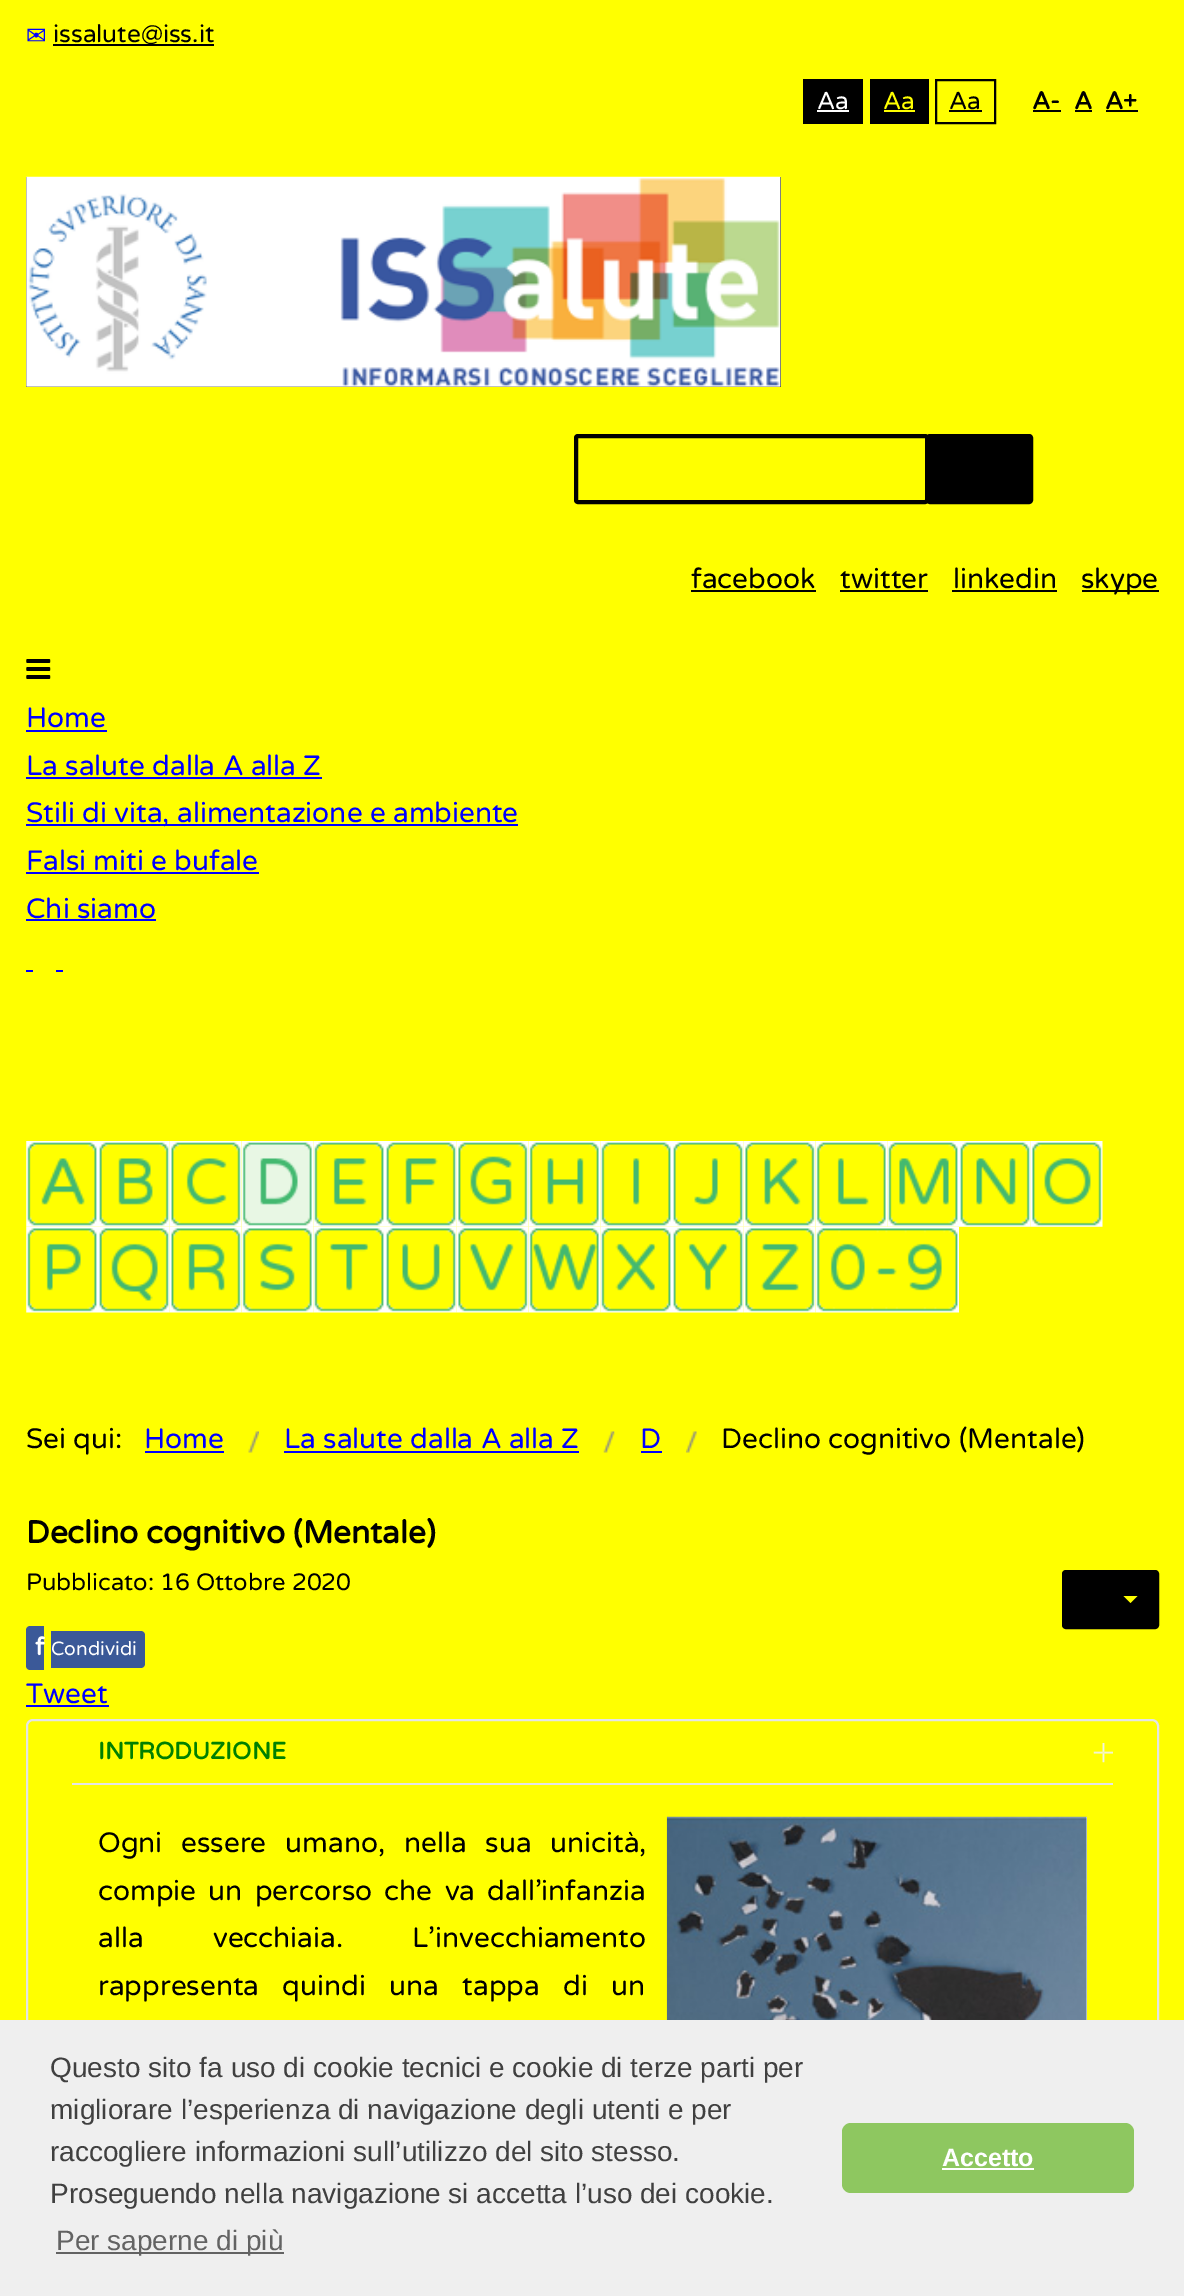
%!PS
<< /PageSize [1184 2296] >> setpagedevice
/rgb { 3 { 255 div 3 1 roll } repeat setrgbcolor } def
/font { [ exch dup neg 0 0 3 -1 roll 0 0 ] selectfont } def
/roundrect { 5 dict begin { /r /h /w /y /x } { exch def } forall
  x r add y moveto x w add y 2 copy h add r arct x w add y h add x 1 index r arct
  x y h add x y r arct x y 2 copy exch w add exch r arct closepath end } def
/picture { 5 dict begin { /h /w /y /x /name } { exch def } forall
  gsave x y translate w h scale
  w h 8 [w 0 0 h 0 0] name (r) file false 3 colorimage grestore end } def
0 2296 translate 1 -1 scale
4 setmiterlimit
255 255 0 rgb
0 0 1184 2296 rectfill
[
  [53 44 161 2 0 0 0]
  [803 79 60 45 0 0 0]
  [817 110 32 2 255 255 255]
  [870 79 59 45 0 0 0]
  [884 110 31 2 255 255 0]
] { aload pop rgb rectfill } forall
0 0 0 rgb
2 setlinewidth
936 80 59 43 rectstroke
[
  [949 110 33 2 0 0 0]
  [1033 110 28 2 0 0 0]
  [1075 110 17 2 0 0 0]
  [1106 110 32 2 0 0 0]
  [26 177 755 210 0 0 0]
] { aload pop rgb rectfill } forall
(img/1.rgb) 26 176 755 211 picture
4 setlinewidth
576 436 351 66 2 roundrect stroke
928 436 103 66 2 roundrect gsave fill grestore
stroke
[
  [691 590 125 2 0 0 0]
  [840 590 88 2 0 0 0]
  [952 590 105 2 0 0 0]
  [1082 590 77 2 0 0 0]
] { aload pop rgb rectfill } forall
(img/2.rgb) 26 659 25 20 picture
[
  [26 730 81 2 0 0 255]
  [26 777 296 2 0 0 255]
  [26 824 492 2 0 0 255]
  [26 872 233 2 0 0 255]
  [26 919 130 2 0 0 255]
  [26 970 7 2 0 0 255]
  [56 970 7 2 0 0 255]
] { aload pop rgb rectfill } forall
(img/3.rgb) 26 1141 72 86 picture
(img/4.rgb) 98 1141 72 86 picture
(img/5.rgb) 169 1141 73 86 picture
232 247 228 rgb
242 1144 71 83 rectfill
(img/6.rgb) 241 1141 73 86 picture
(img/7.rgb) 313 1141 72 86 picture
(img/8.rgb) 385 1141 72 86 picture
(img/9.rgb) 456 1141 73 86 picture
(img/10.rgb) 528 1141 73 86 picture
(img/11.rgb) 600 1141 72 86 picture
(img/12.rgb) 672 1141 72 86 picture
(img/13.rgb) 743 1141 73 86 picture
(img/14.rgb) 815 1141 73 86 picture
(img/15.rgb) 887 1141 72 86 picture
(img/16.rgb) 959 1141 72 86 picture
(img/17.rgb) 1030 1141 73 86 picture
(img/18.rgb) 26 1226 72 87 picture
(img/19.rgb) 98 1226 72 87 picture
(img/20.rgb) 169 1226 73 87 picture
(img/21.rgb) 241 1226 73 87 picture
(img/22.rgb) 313 1226 72 87 picture
(img/23.rgb) 385 1226 72 87 picture
(img/24.rgb) 456 1226 73 87 picture
(img/25.rgb) 528 1226 73 87 picture
(img/26.rgb) 600 1226 72 87 picture
(img/27.rgb) 672 1226 72 87 picture
(img/28.rgb) 743 1226 73 87 picture
(img/29.rgb) 815 1226 144 87 picture
0 0 255 rgb
145 1451 79 2 rectfill
(img/30.rgb) 248 1431 11 22 picture
284 1451 295 2 rectfill
(img/31.rgb) 603 1431 12 22 picture
641 1451 21 2 rectfill
(img/32.rgb) 686 1431 11 22 picture
0 0 0 rgb
1064 1572 93 55 2 roundrect gsave fill grestore
stroke
255 255 0 rgb
1123.5 1596 moveto 1137.5 1596 lineto 1130.5 1603 lineto closepath fill
59 89 152 rgb
30 1626 moveto 44 1626 lineto 44 1670 lineto 30 1670 lineto 28 1670 26 1668 26 1666 curveto 26 1630 lineto 26 1628 28 1626 30 1626 curveto closepath fill
51 1631 moveto 141 1631 lineto 143 1631 145 1633 145 1635 curveto 145 1664 lineto 145 1666 143 1668 141 1668 curveto 51 1668 lineto closepath fill
0 0 255 rgb
26 1705 83 2 rectfill
229 229 229 rgb
2 setlinewidth
27 1720 1131 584 6 roundrect stroke
(img/33.rgb) 1093 1743 20 20 picture
72 1783 1041 2 rectfill
255 255 255 rgb
1086 1817 1 203 rectfill
(img/34.rgb) 666 1816 421 204 picture
239 239 239 rgb
0 2020 1184 276 rectfill
99 99 99 rgb
56 2252 228 2 rectfill
142 199 96 rgb
842 2123 292 70 9 roundrect fill
255 255 255 rgb
942 2168 92 2 rectfill
/DejaVuSans-Regular 24.5 font
0 0 255 rgb
26 44 moveto (✉) show
/VarelaRound-Regular 24.5 font
0 0 0 rgb
53 42 moveto (issalute@iss.it) show
255 255 255 rgb
817 109 moveto (Aa) show
255 255 0 rgb
883 109 moveto (Aa) show
0 0 0 rgb
949 109 moveto (Aa) show
/VarelaRound-Bold 24.5 font
[
  [(A-) 1032 109]
  [(A) 1074 109]
  [(A+) 1105 109]
] { aload pop moveto show } forall
/VarelaRound-Regular 28 font
[
  [(facebook) 691 588]
  [(twitter) 840 588]
  [(linkedin) 953 588]
  [(skype) 1081 588]
] { aload pop moveto show } forall
0 0 255 rgb
[
  [(Home) 26 727]
  [(La salute dalla A alla Z) 26 775]
  [(Stili di vita, alimentazione e ambiente) 26 822]
  [(Falsi miti e bufale) 26 870]
  [(Chi siamo) 26 918]
] { aload pop moveto show } forall
0 0 0 rgb
26 1448 moveto (Sei qui:) show
0 0 255 rgb
[
  [(Home) 144 1448]
  [(La salute dalla A alla Z) 284 1448]
  [(D) 640 1448]
] { aload pop moveto show } forall
0 0 0 rgb
721 1448 moveto (Declino cognitivo \(Mentale\)) show
/VarelaRound-Bold 31.5 font
26 1543 moveto (Declino cognitivo \(Mentale\)) show
/VarelaRound-Regular 23.75 font
26 1590 moveto (Pubblicato: 16 Ottobre 2020) show
/VarelaRound-Bold 24.5 font
255 255 255 rgb
35 1655 moveto (f) show
/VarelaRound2-Regular 19.25 font
51 1655 moveto (Condividi) show
/VarelaRound-Regular 28 font
0 0 255 rgb
26 1703 moveto (Tweet) show
/VarelaRound-Bold 23.75 font
0 128 0 rgb
98 1759 moveto (INTRODUZIONE) show
/VarelaRound-Regular 28 font
0 0 0 rgb
98 1852 moveto 11.5 0 32 (Ogni essere umano, nella sua unicità,) widthshow
98 1900 moveto 5 0 32 (compie un percorso che va dall’infanzia) widthshow
98 1947 moveto 62 0 32 (alla vecchiaia. L’invecchiamento) widthshow
98 1995 moveto 16 0 32 (rappresenta quindi una tappa di un) widthshow
/LiberationSans-Regular 28 font
64 64 64 rgb
[
  [(Questo sito fa uso di cookie tecnici e cookie di terze parti per) 50 2077]
  [(migliorare l’esperienza di navigazione degli utenti e per) 50 2119]
  [(raccogliere informazioni sull’utilizzo del sito stesso.) 50 2161]
  [(Proseguendo nella navigazione si accetta l’uso dei cookie.) 50 2203]
] { aload pop moveto show } forall
99 99 99 rgb
56 2250 moveto (Per saperne di più) show
/LiberationSans-Bold 25 font
255 255 255 rgb
942 2166 moveto (Accetto) show
showpage
